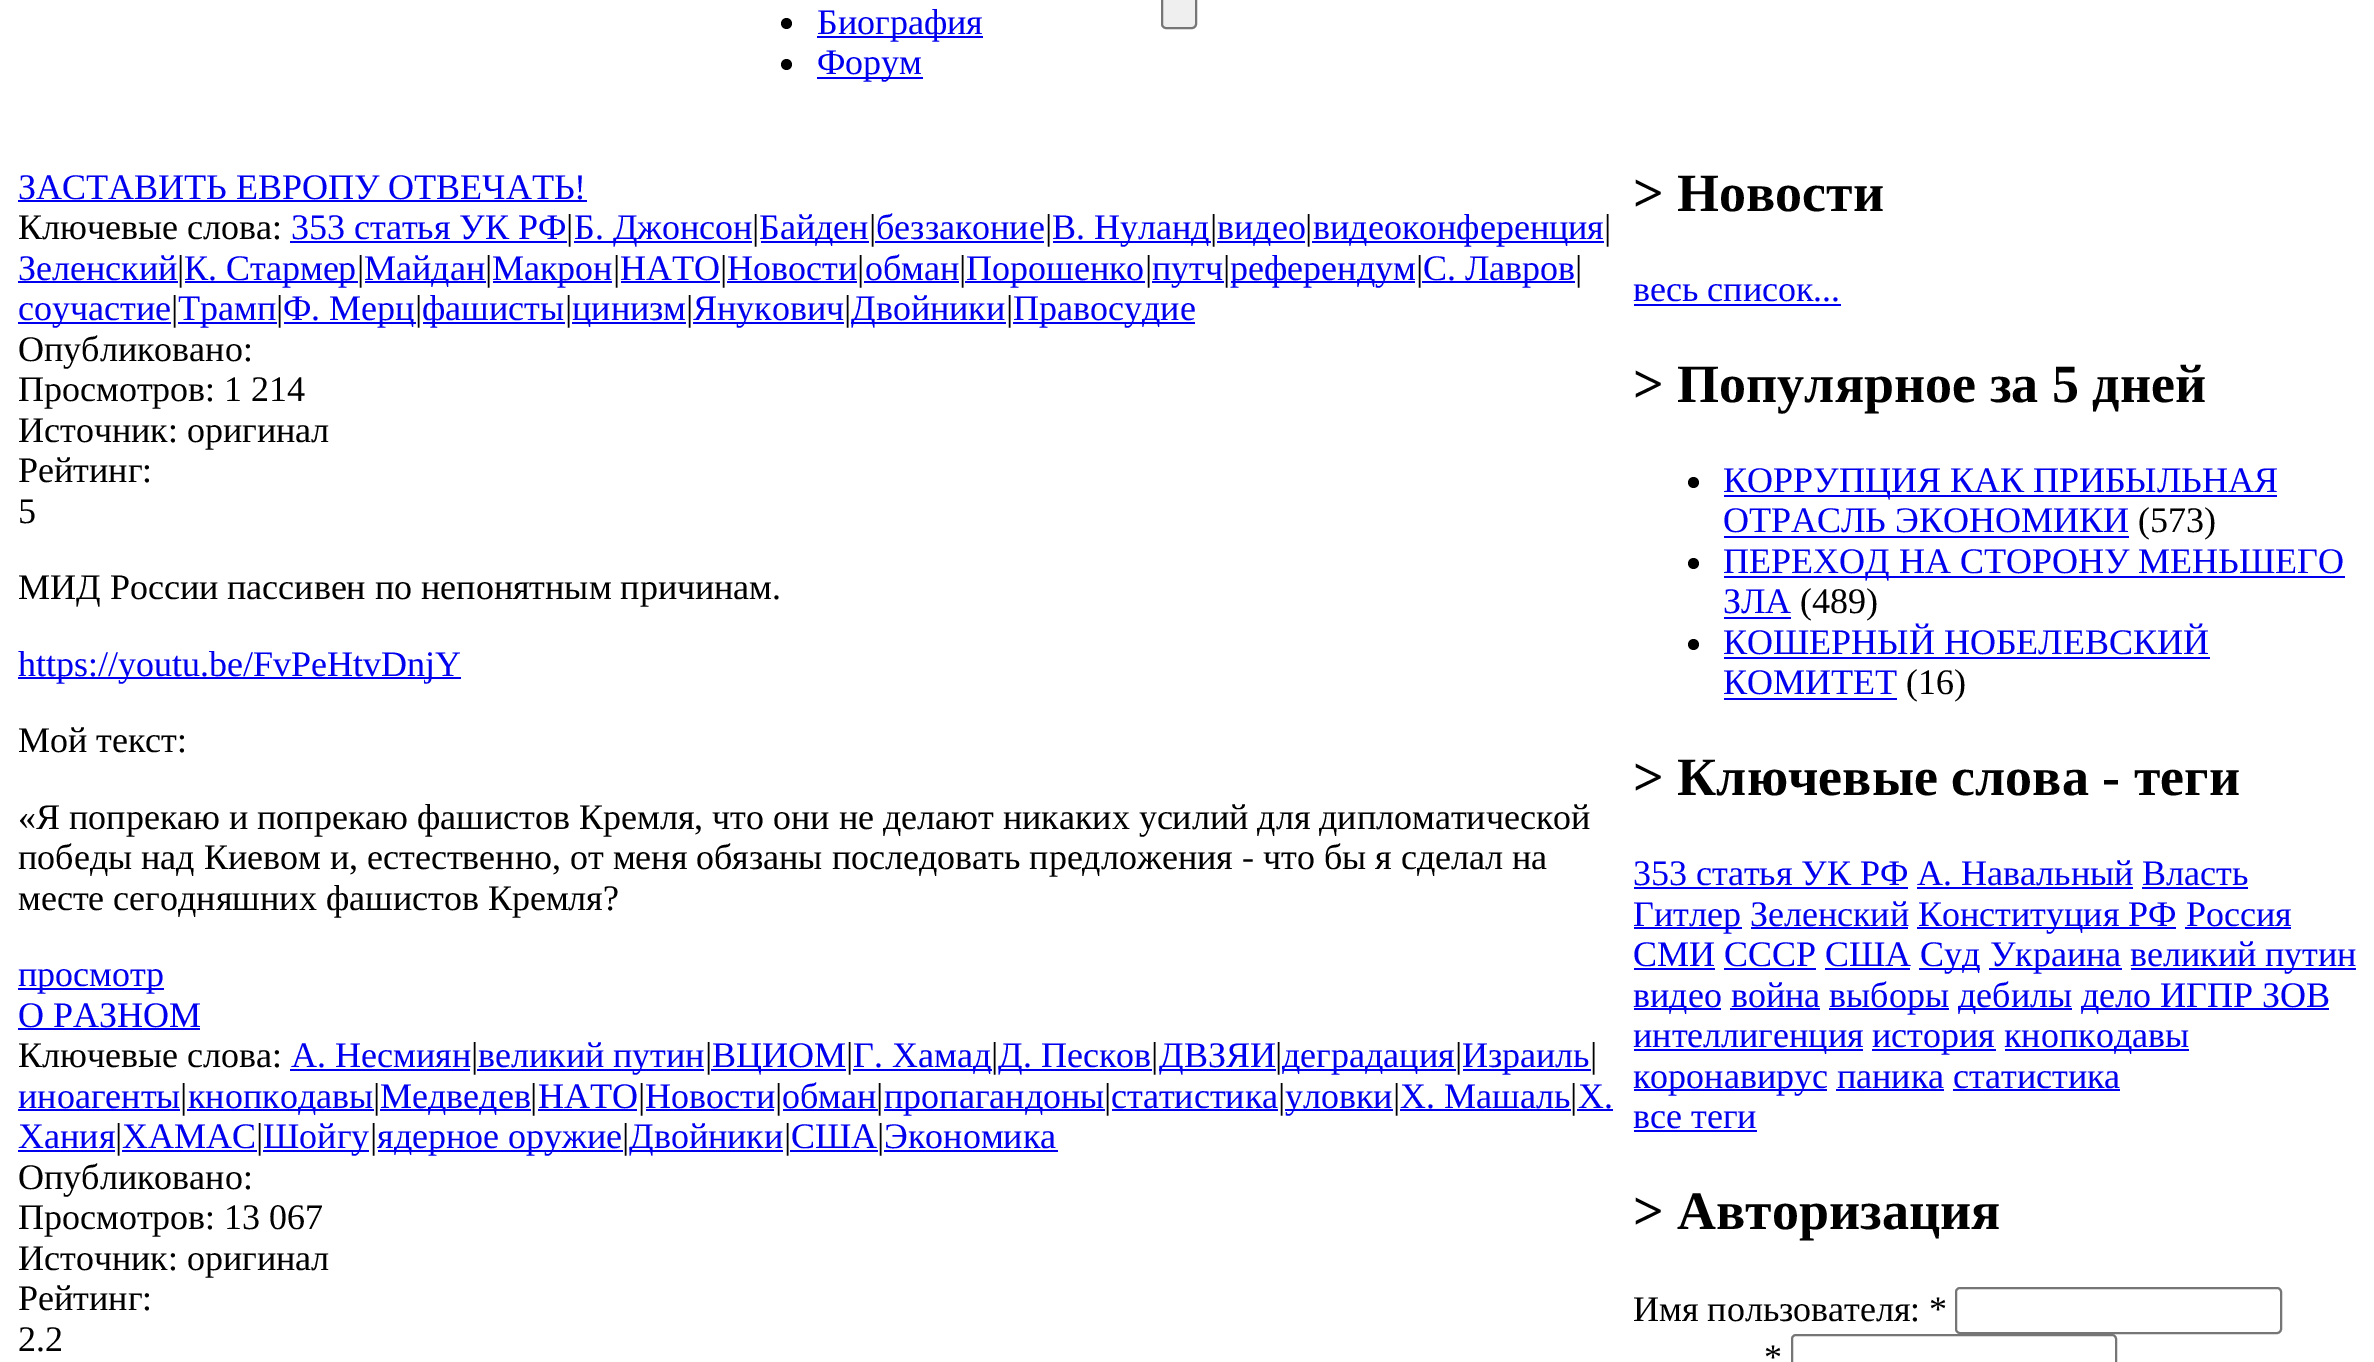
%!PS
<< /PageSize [2374 1362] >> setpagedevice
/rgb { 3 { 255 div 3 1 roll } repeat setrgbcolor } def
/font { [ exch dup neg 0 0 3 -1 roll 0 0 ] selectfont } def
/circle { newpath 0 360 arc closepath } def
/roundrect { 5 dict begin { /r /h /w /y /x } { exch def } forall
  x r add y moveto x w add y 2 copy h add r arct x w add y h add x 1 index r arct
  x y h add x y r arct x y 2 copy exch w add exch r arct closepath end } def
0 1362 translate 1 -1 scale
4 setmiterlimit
255 255 255 rgb
0 0 2374 1362 rectfill
0 0 0 rgb
786.5 23.5 5.5 circle fill
0 0 238 rgb
817 36 166 2 rectfill
0 0 0 rgb
786.5 64.5 5.5 circle fill
0 0 238 rgb
817 77 106 2 rectfill
239 239 239 rgb
1162 -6 34 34 4 roundrect gsave fill grestore
118 118 118 rgb
2 setlinewidth
stroke
[
  [18 200 569 2 0 0 238]
  [290 241 277 2 0 0 238]
  [574 241 178 2 0 0 238]
  [761 241 108 2 0 0 238]
  [875 241 169 2 0 0 238]
  [1053 241 158 2 0 0 238]
  [1217 241 88 2 0 0 238]
  [1312 241 292 2 0 0 238]
  [18 281 160 2 0 0 238]
  [185 281 173 2 0 0 238]
  [365 281 121 2 0 0 238]
  [493 281 119 2 0 0 238]
  [621 281 99 2 0 0 238]
  [727 281 130 2 0 0 238]
  [864 281 95 2 0 0 238]
  [965 281 180 2 0 0 238]
  [1152 281 72 2 0 0 238]
  [1231 281 184 2 0 0 238]
  [1422 281 153 2 0 0 238]
  [18 322 153 2 0 0 238]
  [178 322 99 2 0 0 238]
  [284 322 132 2 0 0 238]
  [423 322 142 2 0 0 238]
  [572 322 114 2 0 0 238]
  [693 322 151 2 0 0 238]
  [851 322 155 2 0 0 238]
  [1013 322 182 2 0 0 238]
  [18 677 443 2 0 0 238]
  [18 988 146 2 0 0 238]
  [18 1028 182 2 0 0 238]
  [290 1069 180 2 0 0 238]
  [477 1069 227 2 0 0 238]
  [711 1069 135 2 0 0 238]
  [853 1069 139 2 0 0 238]
  [999 1069 153 2 0 0 238]
  [1159 1069 117 2 0 0 238]
  [1283 1069 173 2 0 0 238]
  [1463 1069 128 2 0 0 238]
  [18 1109 162 2 0 0 238]
  [187 1109 187 2 0 0 238]
  [380 1109 151 2 0 0 238]
  [538 1109 99 2 0 0 238]
  [646 1109 128 2 0 0 238]
  [783 1109 95 2 0 0 238]
  [884 1109 221 2 0 0 238]
  [1112 1109 166 2 0 0 238]
  [1285 1109 108 2 0 0 238]
  [1400 1109 171 2 0 0 238]
  [1577 1109 36 2 0 0 238]
  [18 1150 97 2 0 0 238]
  [122 1150 135 2 0 0 238]
  [263 1150 106 2 0 0 238]
  [378 1150 245 2 0 0 238]
  [630 1150 153 2 0 0 238]
  [790 1150 88 2 0 0 238]
  [884 1150 174 2 0 0 238]
  [1634 304 207 2 0 0 238]
] { aload pop rgb rectfill } forall
0 0 0 rgb
1693.5 482.5 5.5 circle fill
0 0 238 rgb
1724 495 553 2 rectfill
1724 536 405 2 rectfill
0 0 0 rgb
1693.5 563.5 5.5 circle fill
0 0 238 rgb
1724 576 621 2 rectfill
1724 617 67 2 rectfill
0 0 0 rgb
1693.5 644.5 5.5 circle fill
[
  [1724 657 486 2 0 0 238]
  [1724 698 173 2 0 0 238]
  [1634 887 274 2 0 0 238]
  [1917 887 216 2 0 0 238]
  [2142 887 106 2 0 0 238]
  [1634 927 108 2 0 0 238]
  [1917 927 259 2 0 0 238]
  [1751 927 157 2 0 0 238]
  [2185 927 106 2 0 0 238]
  [1634 968 81 2 0 0 238]
  [1919 968 61 2 0 0 238]
  [1989 968 133 2 0 0 238]
  [2131 968 225 2 0 0 238]
  [1724 968 92 2 0 0 238]
  [1825 968 85 2 0 0 238]
  [1634 1008 87 2 0 0 238]
  [1829 1008 120 2 0 0 238]
  [1958 1008 114 2 0 0 238]
  [2081 1008 248 2 0 0 238]
  [1730 1008 90 2 0 0 238]
  [1634 1049 229 2 0 0 238]
  [1872 1049 124 2 0 0 238]
  [2005 1049 184 2 0 0 238]
  [1634 1089 193 2 0 0 238]
  [1836 1089 108 2 0 0 238]
  [1953 1089 167 2 0 0 238]
  [1634 1130 123 2 0 0 238]
] { aload pop rgb rectfill } forall
118 118 118 rgb
1956 1288 325 45 4 roundrect stroke
1792 1335 324 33 4 roundrect stroke
/LiberationSerif-Regular 36 font
0 0 238 rgb
[
  [(Биография) 817 34]
  [(Форум) 817 74]
  [(ЗАСТАВИТЬ ЕВРОПУ ОТВЕЧАТЬ!) 18 199]
] { aload pop moveto show } forall
0 0 0 rgb
18 239 moveto (Ключевые слова:) show
0 0 238 rgb
291 239 moveto (353 статья УК РФ) show
0 0 0 rgb
566 239 moveto (|) show
0 0 238 rgb
574 239 moveto (Б. Джонсон) show
0 0 0 rgb
752 239 moveto (|) show
0 0 238 rgb
759 239 moveto (Байден) show
0 0 0 rgb
869 239 moveto (|) show
0 0 238 rgb
876 239 moveto (беззаконие) show
0 0 0 rgb
1045 239 moveto (|) show
0 0 238 rgb
1052 239 moveto (В. Нуланд) show
0 0 0 rgb
1210 239 moveto (|) show
0 0 238 rgb
1217 239 moveto (видео) show
0 0 0 rgb
1305 239 moveto (|) show
0 0 238 rgb
1313 239 moveto (видеоконференция) show
0 0 0 rgb
1604 239 moveto (|) show
0 0 238 rgb
18 280 moveto (Зеленский) show
0 0 0 rgb
177 280 moveto (|) show
0 0 238 rgb
184 280 moveto (К. Стармер) show
0 0 0 rgb
357 280 moveto (|) show
0 0 238 rgb
364 280 moveto (Майдан) show
0 0 0 rgb
485 280 moveto (|) show
0 0 238 rgb
492 280 moveto (Макрон) show
0 0 0 rgb
613 280 moveto (|) show
0 0 238 rgb
620 280 moveto (НАТО) show
0 0 0 rgb
720 280 moveto (|) show
0 0 238 rgb
727 280 moveto (Новости) show
0 0 0 rgb
857 280 moveto (|) show
0 0 238 rgb
865 280 moveto (обман) show
0 0 0 rgb
959 280 moveto (|) show
0 0 238 rgb
966 280 moveto (Порошенко) show
0 0 0 rgb
1145 280 moveto (|) show
0 0 238 rgb
1152 280 moveto (путч) show
0 0 0 rgb
1223 280 moveto (|) show
0 0 238 rgb
1230 280 moveto (референдум) show
0 0 0 rgb
1416 280 moveto (|) show
0 0 238 rgb
1423 280 moveto (С. Лавров) show
0 0 0 rgb
1575 280 moveto (|) show
0 0 238 rgb
18 320 moveto (соучастие) show
0 0 0 rgb
171 320 moveto (|) show
0 0 238 rgb
178 320 moveto (Трамп) show
0 0 0 rgb
276 320 moveto (|) show
0 0 238 rgb
283 320 moveto (Ф. Мерц) show
0 0 0 rgb
415 320 moveto (|) show
0 0 238 rgb
422 320 moveto (фашисты) show
0 0 0 rgb
565 320 moveto (|) show
0 0 238 rgb
572 320 moveto (цинизм) show
0 0 0 rgb
686 320 moveto (|) show
0 0 238 rgb
693 320 moveto (Янукович) show
0 0 0 rgb
844 320 moveto (|) show
0 0 238 rgb
851 320 moveto (Двойники) show
0 0 0 rgb
1006 320 moveto (|) show
0 0 238 rgb
1013 320 moveto (Правосудие) show
0 0 0 rgb
[
  [(Опубликовано:) 18 361]
  [(Просмотров: 1 214) 18 401]
  [(Источник: оригинал) 18 442]
  [(Рейтинг:) 18 482]
  [(5) 18 523]
  [(МИД России пассивен по непонятным причинам.) 18 599]
] { aload pop moveto show } forall
0 0 238 rgb
18 676 moveto (https://youtu.be/FvPeHtvDnjY) show
0 0 0 rgb
[
  [(Мой текст:) 18 752]
  [(«Я попрекаю и попрекаю фашистов Кремля, что они не делают никаких усилий для дипломатической) 18 829]
  [(победы над Киевом и, естественно, от меня обязаны последовать предложения - что бы я сделал на) 18 869]
  [(месте сегодняшних фашистов Кремля?) 18 910]
] { aload pop moveto show } forall
0 0 238 rgb
18 986 moveto (просмотр) show
18 1027 moveto (О РАЗНОМ) show
0 0 0 rgb
18 1067 moveto (Ключевые слова:) show
0 0 238 rgb
291 1067 moveto (А. Несмиян) show
0 0 0 rgb
471 1067 moveto (|) show
0 0 238 rgb
478 1067 moveto (великий путин) show
0 0 0 rgb
705 1067 moveto (|) show
0 0 238 rgb
712 1067 moveto (ВЦИОМ) show
0 0 0 rgb
846 1067 moveto (|) show
0 0 238 rgb
853 1067 moveto (Г. Хамад) show
0 0 0 rgb
991 1067 moveto (|) show
0 0 238 rgb
998 1067 moveto (Д. Песков) show
0 0 0 rgb
1151 1067 moveto (|) show
0 0 238 rgb
1159 1067 moveto (ДВЗЯИ) show
0 0 0 rgb
1275 1067 moveto (|) show
0 0 238 rgb
1282 1067 moveto (деградация) show
0 0 0 rgb
1455 1067 moveto (|) show
0 0 238 rgb
1462 1067 moveto (Израиль) show
0 0 0 rgb
1590 1067 moveto (|) show
0 0 238 rgb
18 1108 moveto (иноагенты) show
0 0 0 rgb
180 1108 moveto (|) show
0 0 238 rgb
188 1108 moveto (кнопкодавы) show
0 0 0 rgb
373 1108 moveto (|) show
0 0 238 rgb
380 1108 moveto (Медведев) show
0 0 0 rgb
530 1108 moveto (|) show
0 0 238 rgb
538 1108 moveto (НАТО) show
0 0 0 rgb
638 1108 moveto (|) show
0 0 238 rgb
645 1108 moveto (Новости) show
0 0 0 rgb
775 1108 moveto (|) show
0 0 238 rgb
782 1108 moveto (обман) show
0 0 0 rgb
876 1108 moveto (|) show
0 0 238 rgb
884 1108 moveto (пропагандоны) show
0 0 0 rgb
1104 1108 moveto (|) show
0 0 238 rgb
1111 1108 moveto (статистика) show
0 0 0 rgb
1278 1108 moveto (|) show
0 0 238 rgb
1285 1108 moveto (уловки) show
0 0 0 rgb
1393 1108 moveto (|) show
0 0 238 rgb
1400 1108 moveto (Х. Машаль) show
0 0 0 rgb
1570 1108 moveto (|) show
0 0 238 rgb
1578 1108 moveto (Х.) show
18 1148 moveto (Хания) show
0 0 0 rgb
115 1148 moveto (|) show
0 0 238 rgb
122 1148 moveto (ХАМАС) show
0 0 0 rgb
256 1148 moveto (|) show
0 0 238 rgb
263 1148 moveto (Шойгу) show
0 0 0 rgb
370 1148 moveto (|) show
0 0 238 rgb
377 1148 moveto (ядерное оружие) show
0 0 0 rgb
622 1148 moveto (|) show
0 0 238 rgb
629 1148 moveto (Двойники) show
0 0 0 rgb
784 1148 moveto (|) show
0 0 238 rgb
791 1148 moveto (США) show
0 0 0 rgb
877 1148 moveto (|) show
0 0 238 rgb
884 1148 moveto (Экономика) show
0 0 0 rgb
[
  [(Опубликовано:) 18 1189]
  [(Просмотров: 13 067) 18 1229]
  [(Источник: оригинал) 18 1270]
  [(Рейтинг:) 18 1310]
  [(2.2) 18 1351]
] { aload pop moveto show } forall
/LiberationSerif-Bold 54 font
1633 211 moveto (> Новости) show
/LiberationSerif-Regular 36 font
0 0 238 rgb
1633 301 moveto (весь список...) show
/LiberationSerif-Bold 54 font
0 0 0 rgb
1633 402 moveto (> Популярное за 5 дней) show
/LiberationSerif-Regular 36 font
0 0 238 rgb
1723 492 moveto (КОРРУПЦИЯ КАК ПРИБЫЛЬНАЯ) show
1723 532 moveto (ОТРАСЛЬ ЭКОНОМИКИ) show
0 0 0 rgb
2138 532 moveto (\(573\)) show
0 0 238 rgb
1723 573 moveto (ПЕРЕХОД НА СТОРОНУ МЕНЬШЕГО) show
1723 613 moveto (ЗЛА) show
0 0 0 rgb
1800 613 moveto (\(489\)) show
0 0 238 rgb
1723 654 moveto (КОШЕРНЫЙ НОБЕЛЕВСКИЙ) show
1723 694 moveto (КОМИТЕТ) show
0 0 0 rgb
1906 694 moveto (\(16\)) show
/LiberationSerif-Bold 54 font
1633 795 moveto (> Ключевые слова - теги) show
/LiberationSerif-Regular 36 font
0 0 238 rgb
[
  [(353 статья УК РФ А. Навальный Власть) 1633 885]
  [(Гитлер Зеленский) 1633 926]
  [(Конституция РФ Россия) 1918 926]
  [(СМИ СССР США) 1633 966]
  [(Суд) 1920 966]
  [(Украина) 1990 966]
  [(великий путин) 2130 966]
  [(видео война) 1633 1007]
  [(выборы) 1829 1007]
  [(дебилы) 1958 1007]
  [(дело ИГПР ЗОВ) 2081 1007]
  [(интеллигенция) 1633 1047]
  [(история) 1872 1047]
  [(кнопкодавы) 2004 1047]
  [(коронавирус паника статистика) 1633 1088]
  [(все теги) 1633 1128]
] { aload pop moveto show } forall
/LiberationSerif-Bold 54 font
0 0 0 rgb
1633 1229 moveto (> Авторизация) show
/LiberationSerif-Regular 36 font
1633 1321 moveto (Имя пользователя: *) show
1764 1369 moveto (*) show
showpage
